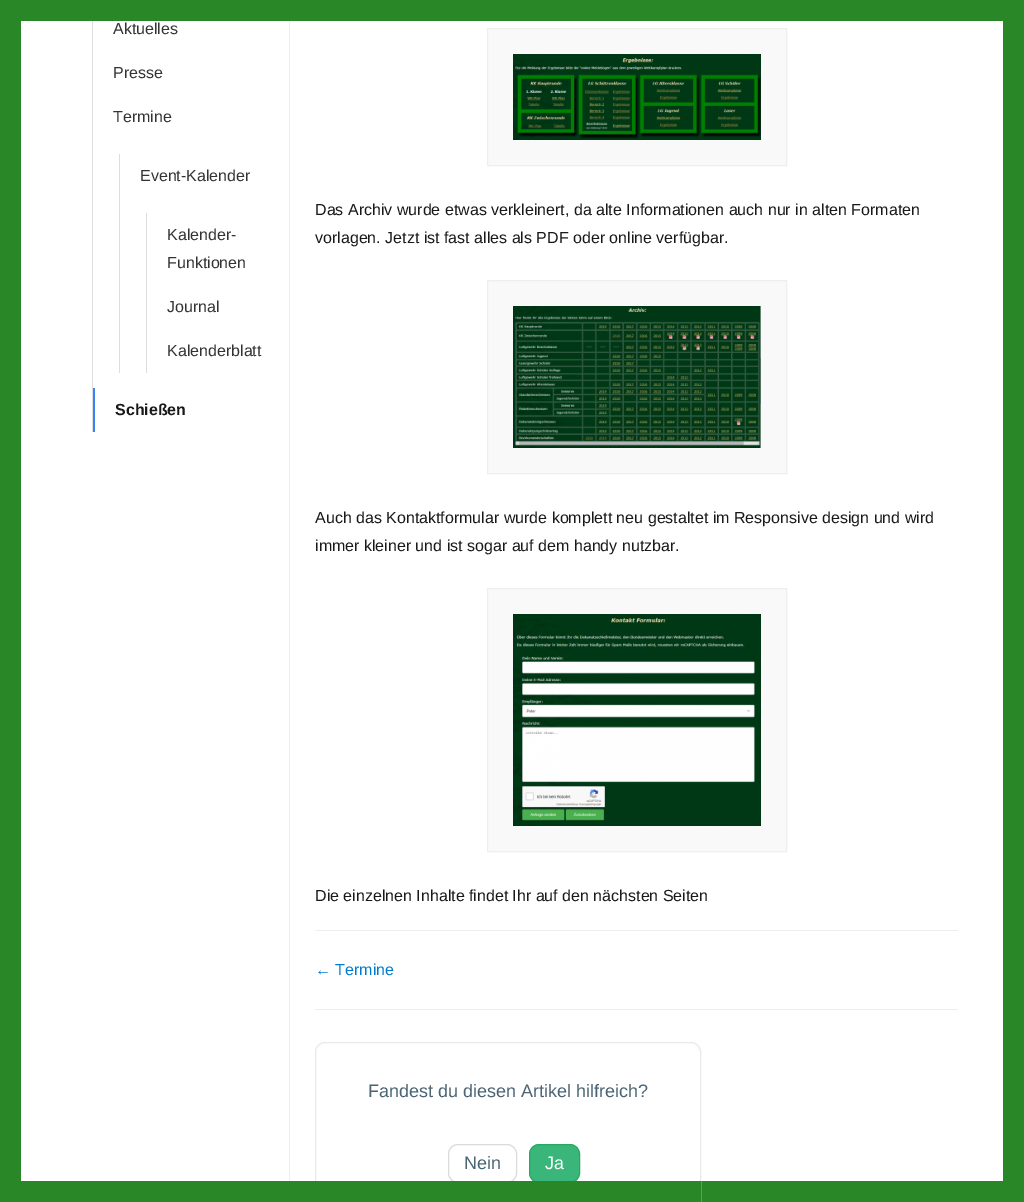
%!PS
<< /PageSize [1024 1202] >> setpagedevice
/rgb { 3 { 255 div 3 1 roll } repeat setrgbcolor } def
/font { [ exch dup neg 0 0 3 -1 roll 0 0 ] selectfont } def
/roundrect { 5 dict begin { /r /h /w /y /x } { exch def } forall
  x r add y moveto x w add y 2 copy h add r arct x w add y h add x 1 index r arct
  x y h add x y r arct x y 2 copy exch w add exch r arct closepath end } def
/picture { 5 dict begin { /h /w /y /x /name } { exch def } forall
  gsave x y translate w h scale
  w h 8 [w 0 0 h 0 0] name (r) file false 3 colorimage grestore end } def
0 1202 translate 1 -1 scale
4 setmiterlimit
42 135 40 rgb
0 0 1024 1202 rectfill
[
  [21 21 982 1160 255 255 255]
  [92 21 1 411 221 221 221]
  [119 154 1 219 221 221 221]
  [146 213 1 160 221 221 221]
  [93 388 2 44 59 130 246]
  [289 21 1 1160 238 238 238]
] { aload pop rgb rectfill } forall
249 249 249 rgb
487.5 28.5 moveto 786.5 28.5 lineto 786.5 165.5 lineto 487.5 165.5 lineto closepath gsave fill grestore
238 238 238 rgb
stroke
(img/1.rgb) 513 54 248 86 picture
249 249 249 rgb
487.5 280.5 moveto 786.5 280.5 lineto 786.5 473.5 lineto 487.5 473.5 lineto closepath gsave fill grestore
238 238 238 rgb
stroke
(img/2.rgb) 513 306 248 142 picture
249 249 249 rgb
487.5 588.5 moveto 786.5 588.5 lineto 786.5 851.5 lineto 487.5 851.5 lineto closepath gsave fill grestore
238 238 238 rgb
stroke
(img/3.rgb) 513 614 248 212 picture
315 930 643 1 rectfill
315 1009 643 1 rectfill
233 233 233 rgb
315.5 1042.5 385 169 9.5 roundrect stroke
219 219 219 rgb
448.5 1144.5 68 38 9.5 roundrect stroke
59 182 123 rgb
529.5 1144.5 50 38 9.5 roundrect gsave fill grestore
38 170 94 rgb
stroke
42 135 40 rgb
315 1181 386 21 rectfill
/LiberationSans-Regular 16 font
51 51 51 rgb
[
  [(Aktuelles) 113 34]
  [(Presse) 113 78]
  [(Termine) 113 122]
  [(Event-Kalender) 140 181]
  [(Kalender-) 167 240]
  [(Funktionen) 167 268]
  [(Journal) 167 312]
  [(Kalenderblatt) 167 356]
] { aload pop moveto show } forall
/LiberationSans-Bold 16 font
25 25 25 rgb
115 415 moveto (Schießen) show
/LiberationSans-Regular 16 font
[
  [(Das Archiv wurde etwas verkleinert, da alte Informationen auch nur in alten Formaten) 315 215]
  [(vorlagen. Jetzt ist fast alles als PDF oder online verfügbar.) 315 243]
  [(Auch das Kontaktformular wurde komplett neu gestaltet im Responsive design und wird) 315 523]
  [(immer kleiner und ist sogar auf dem handy nutzbar.) 315 551]
  [(Die einzelnen Inhalte findet Ihr auf den nächsten Seiten) 315 901]
] { aload pop moveto show } forall
0 122 204 rgb
315 975 moveto (← Termine) show
/LiberationSans-Regular 18 font
74 100 116 rgb
368 1097 moveto (Fandest du diesen Artikel hilfreich?) show
464 1169 moveto (Nein) show
255 255 255 rgb
545 1169 moveto (Ja) show
showpage
